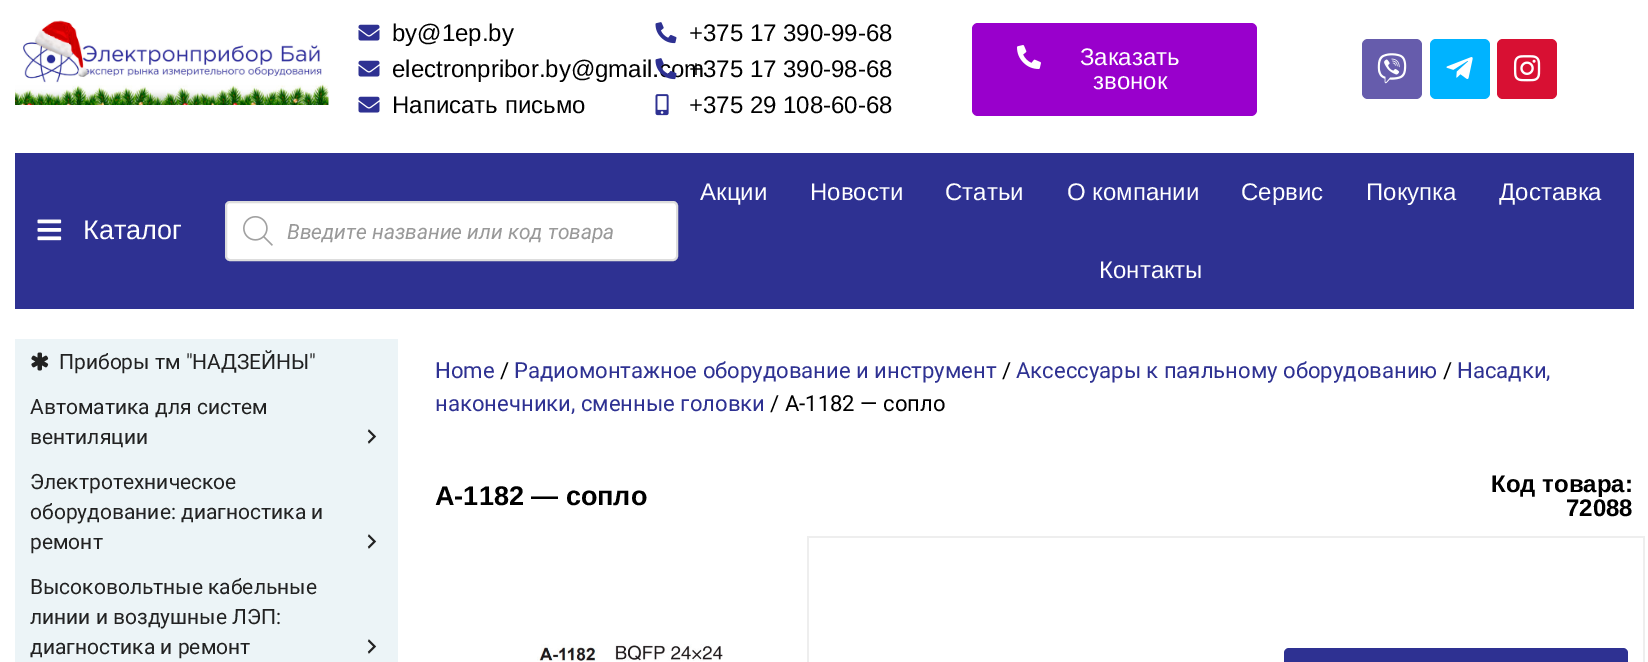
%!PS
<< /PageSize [1648 662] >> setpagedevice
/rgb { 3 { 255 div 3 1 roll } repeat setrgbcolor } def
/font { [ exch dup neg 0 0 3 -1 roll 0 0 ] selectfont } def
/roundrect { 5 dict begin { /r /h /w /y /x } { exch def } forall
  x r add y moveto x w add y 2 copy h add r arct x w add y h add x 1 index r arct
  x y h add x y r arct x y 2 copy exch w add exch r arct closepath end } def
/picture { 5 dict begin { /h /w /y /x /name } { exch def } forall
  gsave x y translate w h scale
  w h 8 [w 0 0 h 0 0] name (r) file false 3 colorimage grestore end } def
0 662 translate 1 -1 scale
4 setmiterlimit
255 255 255 rgb
0 0 1648 662 rectfill
(img/1.rgb) 15 20 314 85 picture
(img/2.rgb) 358 24 22 17 picture
(img/2.rgb) 358 60 22 17 picture
(img/2.rgb) 358 96 22 17 picture
(img/3.rgb) 655 22 22 22 picture
(img/5.rgb) 655 94 14 22 picture
153 0 204 rgb
972 23 285 93 6 roundrect fill
(img/6.rgb) 1017 45 24 24 picture
102 92 172 rgb
1362 39 60 60 6 roundrect fill
(img/7.rgb) 1377 53 30 31 picture
0 179 255 rgb
1430 39 60 60 6 roundrect fill
(img/8.rgb) 1446 57 27 22 picture
216 16 51 rgb
1497 39 60 60 6 roundrect fill
(img/9.rgb) 1513 55 28 27 picture
46 49 146 rgb
15 153 1619 156 rectfill
(img/10.rgb) 37 219 25 22 picture
255 255 255 rgb
226 202 451 58 4 roundrect gsave fill grestore
221 221 221 rgb
2 setlinewidth
stroke
(img/11.rgb) 243 216 30 30 picture
236 244 247 rgb
15 339 383 323 rectfill
(img/12.rgb) 31 352 18 19 picture
(img/13.rgb) 367 429 10 15 picture
(img/13.rgb) 367 534 10 15 picture
(img/13.rgb) 367 639 10 15 picture
238 238 238 rgb
807 536 837 2 rectfill
807 536 2 126 rectfill
(img/14.rgb) 537 644 186 17 picture
1643 536 2 126 rectfill
46 49 146 rgb
1284 648 344 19 5 roundrect fill
/LiberationSans-Regular 24 font
0 0 0 rgb
[
  [(by@1ep.by) 392 41]
  [(electronpribor.by@gmail.com) 392 77]
  [(Написать письмо) 392 113]
  [(+375 17 390-99-68) 689 41]
] { aload pop moveto show } forall
(img/4.rgb) 655 58 22 22 picture
689 77 moveto (+375 17 390-98-68) show
689 113 moveto (+375 29 108-60-68) show
255 255 255 rgb
1080 65 moveto (Заказать) show
1093 89 moveto (звонок) show
/LiberationSans-Regular 27 font
83 239 moveto (Каталог) show
gsave
287 219 367 24 rectclip
/Roboto-Italic 21 font
153 153 153 rgb
287 239 moveto (Введите название или код товара) show
grestore
/LiberationSans-Regular 24 font
[
  [(Акции) 700 200]
  [(Новости) 810 200]
  [(Статьи) 945 200]
  [(О компании) 1067 200]
  [(Сервис) 1241 200]
  [(Покупка) 1366 200]
  [(Доставка) 1499 200]
  [(Контакты) 1099 278]
] { aload pop moveto show } forall
/Roboto-Regular 21 font
34 34 34 rgb
[
  [(Приборы тм "НАДЗЕЙНЫ") 59 369]
  [(Автоматика для систем) 30 414]
  [(вентиляции) 30 444]
  [(Электротехническое) 30 489]
  [(оборудование: диагностика и) 30 519]
  [(ремонт) 30 549]
  [(Высоковольтные кабельные) 30 594]
  [(линии и воздушные ЛЭП:) 30 624]
  [(диагностика и ремонт) 30 654]
] { aload pop moveto show } forall
/Roboto-Regular 22.1 font
46 49 146 rgb
435 378 moveto (Home) show
0 0 0 rgb
500 378 moveto (/) show
46 49 146 rgb
514 378 moveto (Радиомонтажное оборудование и инструмент) show
0 0 0 rgb
1002 378 moveto (/) show
46 49 146 rgb
1016 378 moveto (Аксессуары к паяльному оборудованию) show
0 0 0 rgb
1443 378 moveto (/) show
46 49 146 rgb
1457 378 moveto (Насадки,) show
435 411 moveto (наконечники, сменные головки) show
0 0 0 rgb
770 411 moveto (/ A-1182 — сопло) show
/LiberationSans-Bold 27 font
435 505 moveto (A-1182 — сопло) show
/LiberationSans-Bold 24 font
1491 492 moveto (Код товара:) show
1566 516 moveto (72088) show
showpage
